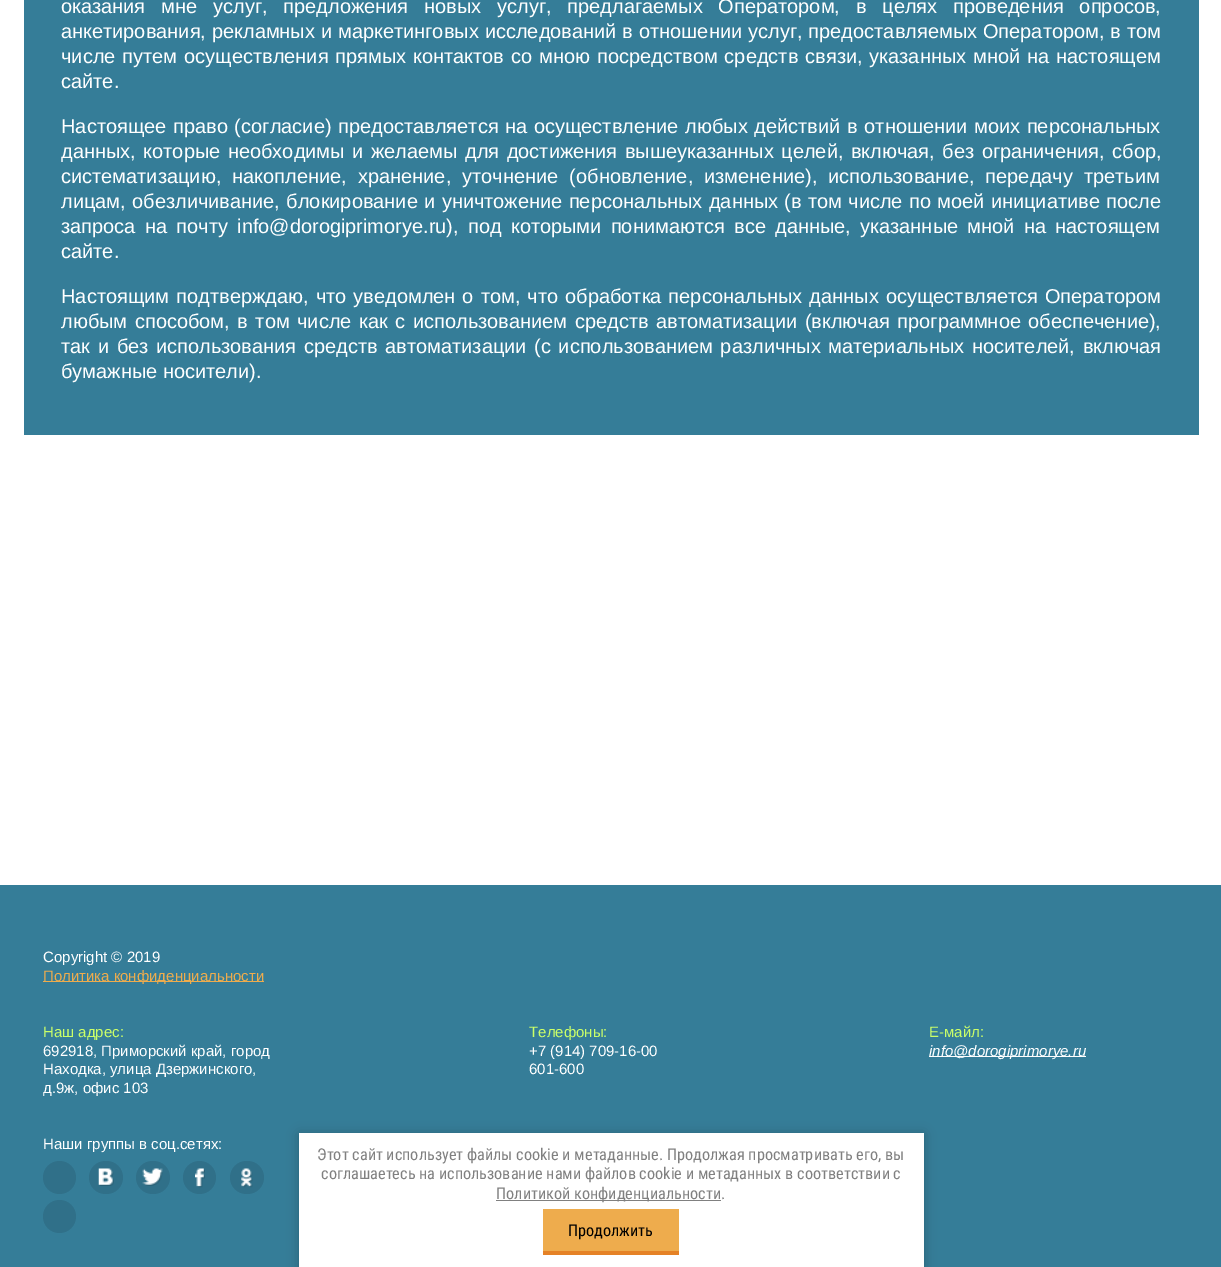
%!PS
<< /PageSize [1221 1267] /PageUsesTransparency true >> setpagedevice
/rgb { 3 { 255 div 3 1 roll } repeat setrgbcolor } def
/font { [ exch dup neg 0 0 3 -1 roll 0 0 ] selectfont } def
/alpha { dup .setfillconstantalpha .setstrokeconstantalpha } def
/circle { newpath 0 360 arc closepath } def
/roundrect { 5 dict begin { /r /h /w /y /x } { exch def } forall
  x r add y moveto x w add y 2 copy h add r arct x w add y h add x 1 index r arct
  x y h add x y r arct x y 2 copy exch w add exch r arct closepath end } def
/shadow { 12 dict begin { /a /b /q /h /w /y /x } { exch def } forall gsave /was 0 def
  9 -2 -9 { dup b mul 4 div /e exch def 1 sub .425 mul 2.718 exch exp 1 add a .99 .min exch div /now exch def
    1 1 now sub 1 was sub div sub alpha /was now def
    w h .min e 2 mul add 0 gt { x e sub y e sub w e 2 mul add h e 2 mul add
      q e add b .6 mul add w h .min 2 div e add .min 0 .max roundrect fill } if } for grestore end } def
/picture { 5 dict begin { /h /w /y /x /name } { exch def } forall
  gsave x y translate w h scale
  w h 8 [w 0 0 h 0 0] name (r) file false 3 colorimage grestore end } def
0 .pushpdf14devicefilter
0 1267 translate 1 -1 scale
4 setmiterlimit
255 255 255 rgb
0 0 1221 1267 rectfill
[
  [24 0 1175 435 53 125 152]
  [0 885 1221 382 53 125 152]
  [43 981 221 1 238 172 77]
  [929 1056 157 1 255 255 255]
] { aload pop rgb rectfill } forall
48 112 137 rgb
59.5 1177.5 16.5 circle fill
89 1161 34 33 16.5 roundrect fill
(img/1.rgb) 98 1168 16 18 picture
136 1161 34 33 16.5 roundrect fill
(img/2.rgb) 142 1168 21 18 picture
199.5 1177.5 16.5 circle fill
(img/3.rgb) 195 1168 10 20 picture
230 1161 34 33 16.5 roundrect fill
(img/4.rgb) 241 1168 12 20 picture
59.5 1216.5 16.5 circle fill
0 0 0 rgb
299 1134 625 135 0 6 0.23 shadow
[
  [299 1133 625 134 255 255 255]
  [496 1200 225 1 128 128 128]
  [543 1209 136 42 238 172 77]
  [543 1251 136 4 229 130 38]
] { aload pop rgb rectfill } forall
/LiberationSans-Regular 20 font
255 255 255 rgb
61 13 moveto 10.25 0 32 (оказания мне услуг, предложения новых услуг, предлагаемых Оператором, в целях проведения опросов,) widthshow
61 38 moveto 0.4 0 32 (анкетирования, рекламных и маркетинговых исследований в отношении услуг, предоставляемых Оператором, в том) widthshow
61 63 moveto 1.4 0 32 (числе путем осуществления прямых контактов со мною посредством средств связи, указанных мной на настоящем) widthshow
61 88 moveto (сайте.) show
61 133 moveto 1.1 0 32 (Настоящее право \(согласие\) предоставляется на осуществление любых действий в отношении моих персональных) widthshow
61 158 moveto 2 0 32 (данных, которые необходимы и желаемы для достижения вышеуказанных целей, включая, без ограничения, сбор,) widthshow
61 183 moveto 5.5 0 32 (систематизацию, накопление, хранение, уточнение \(обновление, изменение\), использование, передачу третьим) widthshow
61 208 moveto 0.75 0 32 (лицам, обезличивание, блокирование и уничтожение персональных данных \(в том числе по моей инициативе после) widthshow
61 233 moveto 3.75 0 32 (запроса на почту info@dorogiprimorye.ru\), под которыми понимаются все данные, указанные мной на настоящем) widthshow
61 258 moveto (сайте.) show
61 303 moveto 1.5 0 32 (Настоящим подтверждаю, что уведомлен о том, что обработка персональных данных осуществляется Оператором) widthshow
61 328 moveto 2 0 32 (любым способом, в том числе как с использованием средств автоматизации \(включая программное обеспечение\),) widthshow
61 353 moveto 2.1 0 32 (так и без использования средств автоматизации \(с использованием различных материальных носителей, включая) widthshow
61 378 moveto (бумажные носители\).) show
/LiberationSans-Regular 15 font
43 962 moveto (Copyright © 2019) show
238 172 77 rgb
43 981 moveto (Политика конфиденциальности) show
203 255 104 rgb
43 1037 moveto (Наш адрес:) show
255 255 255 rgb
[
  [(692918, Приморский край, город) 43 1056]
  [(Находка, улица Дзержинского,) 43 1074]
  [(д.9ж, офис 103) 43 1093]
] { aload pop moveto show } forall
203 255 104 rgb
529 1037 moveto (Телефоны:) show
255 255 255 rgb
529 1056 moveto (+7 \(914\) 709-16-00) show
529 1074 moveto (601-600) show
203 255 104 rgb
929 1037 moveto (E-майл:) show
/LiberationSans-Italic 15 font
255 255 255 rgb
929 1056 moveto (info@dorogiprimorye.ru) show
/LiberationSans-Regular 15 font
43 1149 moveto (Наши группы в соц.сетях:) show
/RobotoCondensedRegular-Regular 16.25 font
128 128 128 rgb
[
  [(Этот сайт использует файлы cookie и метаданные. Продолжая просматривать его, вы) 317 1160]
  [(соглашаетесь на использование нами файлов cookie и метаданных в соответствии с) 321 1179]
  [(Политикой конфиденциальности.) 496 1199]
] { aload pop moveto show } forall
0 0 0 rgb
568 1236 moveto (Продолжить) show
.poppdf14devicefilter showpage
